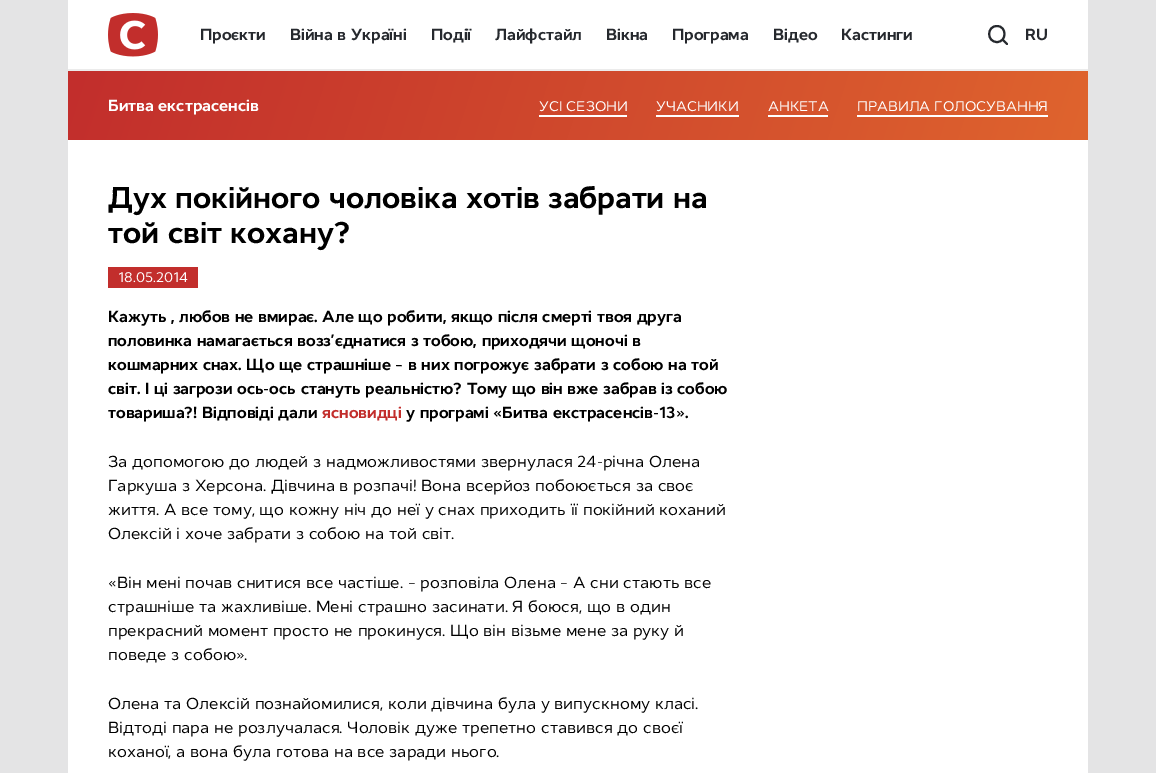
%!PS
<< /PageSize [1156 775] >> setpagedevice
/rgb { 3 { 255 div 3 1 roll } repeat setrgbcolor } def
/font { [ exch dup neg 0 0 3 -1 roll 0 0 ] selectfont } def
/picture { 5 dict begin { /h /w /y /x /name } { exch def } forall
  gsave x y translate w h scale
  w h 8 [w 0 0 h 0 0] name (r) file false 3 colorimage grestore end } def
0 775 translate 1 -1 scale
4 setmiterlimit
228 228 229 rgb
0 0 1156 775 rectfill
255 255 255 rgb
68 0 1020 773 rectfill
235 235 235 rgb
68 69 1020 2 rectfill
(img/1.rgb) 108 13 50 44 picture
38 41 46 rgb
2 setlinewidth
1 setlinecap
1 setlinejoin
997 42 moveto 1007 42 1007 26 997 26 curveto 986.5 26 986.5 42 997 42 curveto closepath 1002.5 39.5 moveto 1007 44 lineto stroke
gsave 68 71 moveto 1088 71 lineto 1088 140 lineto 68 140 lineto closepath clip newpath
<< /ShadingType 2 /ColorSpace /DeviceRGB /Coords [107 -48 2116 605] /Extend [true true] /Function << /FunctionType 2 /Domain [0 1] /C0 [0.761 0.18 0.173] /C1 [1 0.631 0.18] /N 1 >> >> shfill grestore
[
  [539 115 88 2 255 255 255]
  [656 115 83 2 255 255 255]
  [768 115 60 2 255 255 255]
  [857 115 191 2 255 255 255]
  [108 267 90 21 194 46 44]
  [0 773 1156 2 255 255 255]
] { aload pop rgb rectfill } forall
/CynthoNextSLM-Bold 16 font
38 41 46 rgb
[
  [(Проєкти) 200 40]
  [(Війна в Україні) 290 40]
  [(Події) 431 40]
  [(Лайфстайл) 495 40]
  [(Вікна) 606 40]
  [(Програма) 672 40]
  [(Відео) 773 40]
  [(Кастинги) 841 40]
  [(RU) 1025 40]
] { aload pop moveto show } forall
255 255 255 rgb
108 111 moveto (Битва екстрасенсів) show
/CynthoNextSLM-Regular 14 font
[
  [(УСІ СЕЗОНИ) 539 111]
  [(УЧАСНИКИ) 656 111]
  [(АНКЕТА) 768 111]
  [(ПРАВИЛА ГОЛОСУВАННЯ) 857 111]
] { aload pop moveto show } forall
/CynthoNextSLM-Bold 30 font
0 0 0 rgb
108 208 moveto (Дух покійного чоловіка хотів забрати на) show
108 243 moveto (той світ кохану?) show
/CynthoNextSLM-Regular 14 font
255 255 255 rgb
118 282 moveto (18.05.2014) show
/CynthoNextSLM-Bold 16 font
0 0 0 rgb
[
  [(Кажуть , любов не вмирає. Але що робити, якщо після смерті твоя друга) 108 322]
  [(половинка намагається возз’єднатися з тобою, приходячи щоночі в) 108 346]
  [(кошмарних снах. Що ще страшніше – в них погрожує забрати з собою на той) 108 370]
  [(світ. І ці загрози ось-ось стануть реальністю? Тому що він вже забрав із собою) 108 394]
  [(товариша?! Відповіді дали) 108 418]
] { aload pop moveto show } forall
194 46 44 rgb
322 418 moveto (ясновидці) show
0 0 0 rgb
406 418 moveto (у програмі «Битва екстрасенсів-13».) show
/CynthoNextSLM-Regular 16 font
[
  [(За допомогою до людей з надможливостями звернулася 24-річна Олена) 108 467]
  [(Гаркуша з Херсона. Дівчина в розпачі! Вона всерйоз побоюється за своє) 108 491]
  [(життя. А все тому, що кожну ніч до неї у снах приходить її покійний коханий) 108 515]
  [(Олексій і хоче забрати з собою на той світ.) 108 539]
  [(«Він мені почав снитися все частіше. – розповіла Олена – А сни стають все) 108 588]
  [(страшніше та жахливіше. Мені страшно засинати. Я боюся, що в один) 108 612]
  [(прекрасний момент просто не прокинуся. Що він візьме мене за руку й) 108 636]
  [(поведе з собою».) 108 660]
  [(Олена та Олексій познайомилися, коли дівчина була у випускному класі.) 108 709]
  [(Відтоді пара не розлучалася. Чоловік дуже трепетно ставився до своєї) 108 733]
  [(коханої, а вона була готова на все заради нього.) 108 757]
] { aload pop moveto show } forall
showpage
